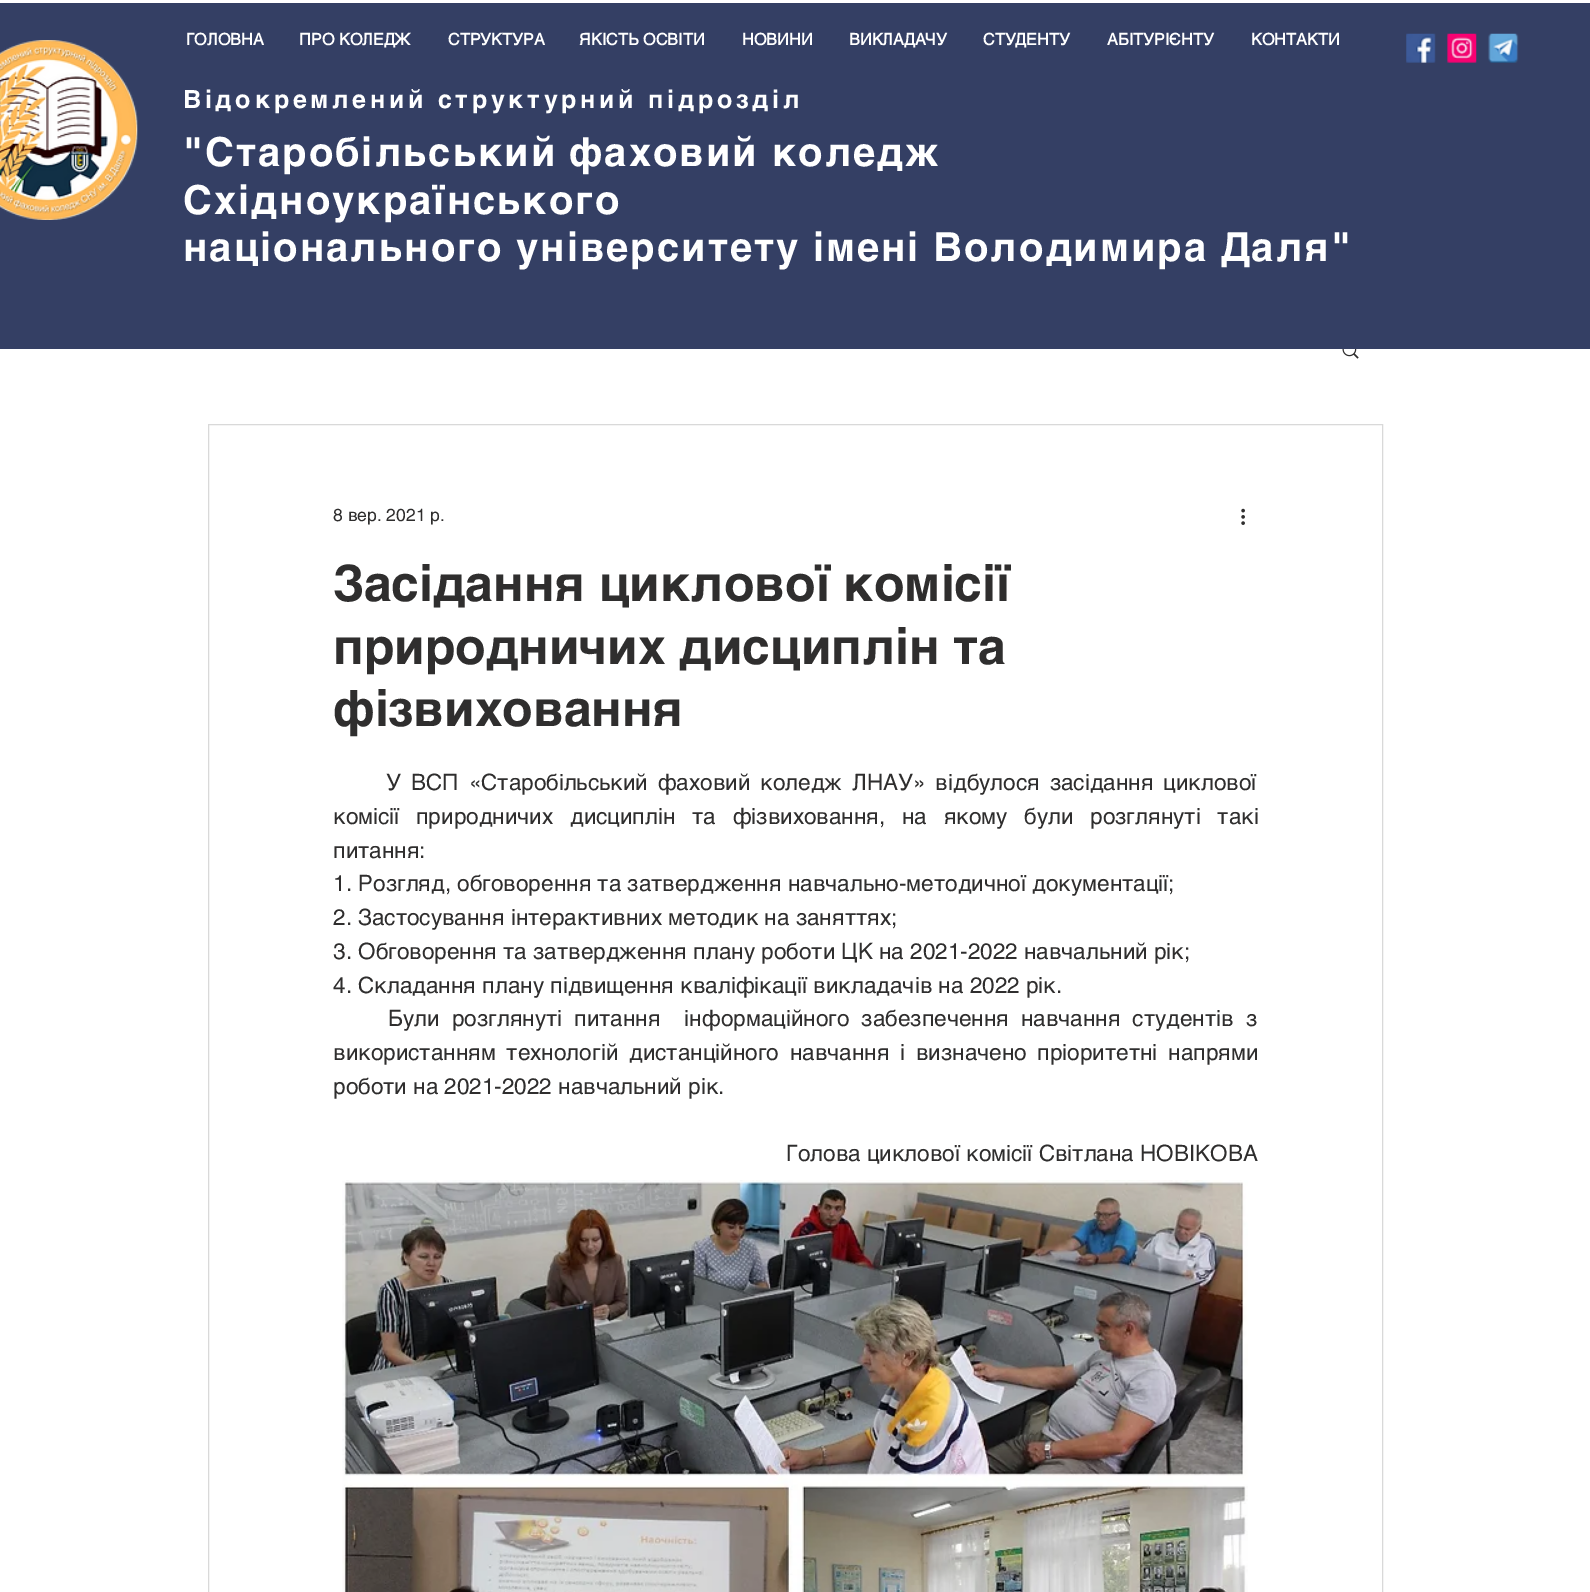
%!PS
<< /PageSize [1590 1592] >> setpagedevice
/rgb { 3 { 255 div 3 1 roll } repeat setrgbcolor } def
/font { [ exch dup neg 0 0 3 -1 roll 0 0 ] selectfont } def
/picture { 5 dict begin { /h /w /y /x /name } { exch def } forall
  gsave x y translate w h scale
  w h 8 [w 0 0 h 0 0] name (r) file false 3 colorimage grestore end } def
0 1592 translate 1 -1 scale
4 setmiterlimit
255 255 255 rgb
0 0 1590 1592 rectfill
52 63 100 rgb
0 3 1590 346 rectfill
(img/1.rgb) 1406 33 30 30 picture
(img/2.rgb) 1447 33 30 30 picture
(img/3.rgb) 1488 33 31 30 picture
(img/4.rgb) 0 40 138 180 picture
(img/5.rgb) 1342 349 17 10 picture
217 217 217 rgb
208.5 424.5 1174 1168 rectstroke
(img/6.rgb) 1241 508 4 17 picture
(img/7.rgb) 342 1180 906 412 picture
/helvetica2-Bold 16.25 font
255 255 255 rgb
[
  [(ГОЛОВНА) 186 45]
  [(ПРО КОЛЕДЖ) 299 45]
  [(СТРУКТУРА) 448 45]
  [(ЯКІСТЬ ОСВІТИ) 579 45]
  [(НОВИНИ) 742 45]
  [(ВИКЛАДАЧУ) 849 45]
  [(СТУДЕНТУ) 983 45]
  [(АБІТУРІЄНТУ) 1107 45]
  [(КОНТАКТИ) 1251 45]
] { aload pop moveto show } forall
/helvetica-Bold 25 font
183 108 moveto 3.75 0 (Відокремлений структурний підрозділ) ashow
/helvetica-Bold 40 font
183 166 moveto 2 0 ("Старобільський) ashow
569 166 moveto 2 0 (фаховий коледж) ashow
183 214 moveto 2 0 (Східноукраїнського) ashow
183 261 moveto -0.5 0 32 2 0 (національного університету імені Володимира Даля") awidthshow
/helvetica-Regular 17.5 font
47 46 46 rgb
333 521 moveto (8 вер. 2021 р.) show
/helvetica-Bold 50 font
[
  [(Засідання циклової комісії) 333 601]
  [(природничих дисциплін та) 333 664]
  [(фізвиховання) 333 726]
] { aload pop moveto show } forall
/helvetica-Regular 22.5 font
386 790 moveto 3.75 0 32 (У ВСП «Старобільський фаховий коледж ЛНАУ» відбулося засідання циклової) widthshow
333 824 moveto 10.5 0 32 (комісії природничих дисциплін та фізвиховання, на якому були розглянуті такі) widthshow
[
  [(питання:) 333 858]
  [(1. Розгляд, обговорення та затвердження навчально-методичної документації;) 333 891]
  [(2. Застосування інтерактивних методик на заняттях;) 333 925]
  [(3. Обговорення та затвердження плану роботи ЦК на 2021-2022 навчальний рік;) 333 959]
  [(4. Складання плану підвищення кваліфікації викладачів на 2022 рік.) 333 993]
] { aload pop moveto show } forall
388 1026 moveto 5.75 0 32 (Були розглянуті питання  інформаційного забезпечення навчання студентів з) widthshow
333 1060 moveto 4.5 0 32 (використанням технологій дистанційного навчання і визначено пріоритетні напрями) widthshow
333 1094 moveto (роботи на 2021-2022 навчальний рік.) show
786 1161 moveto (Голова циклової комісії Світлана НОВІКОВА) show
showpage
